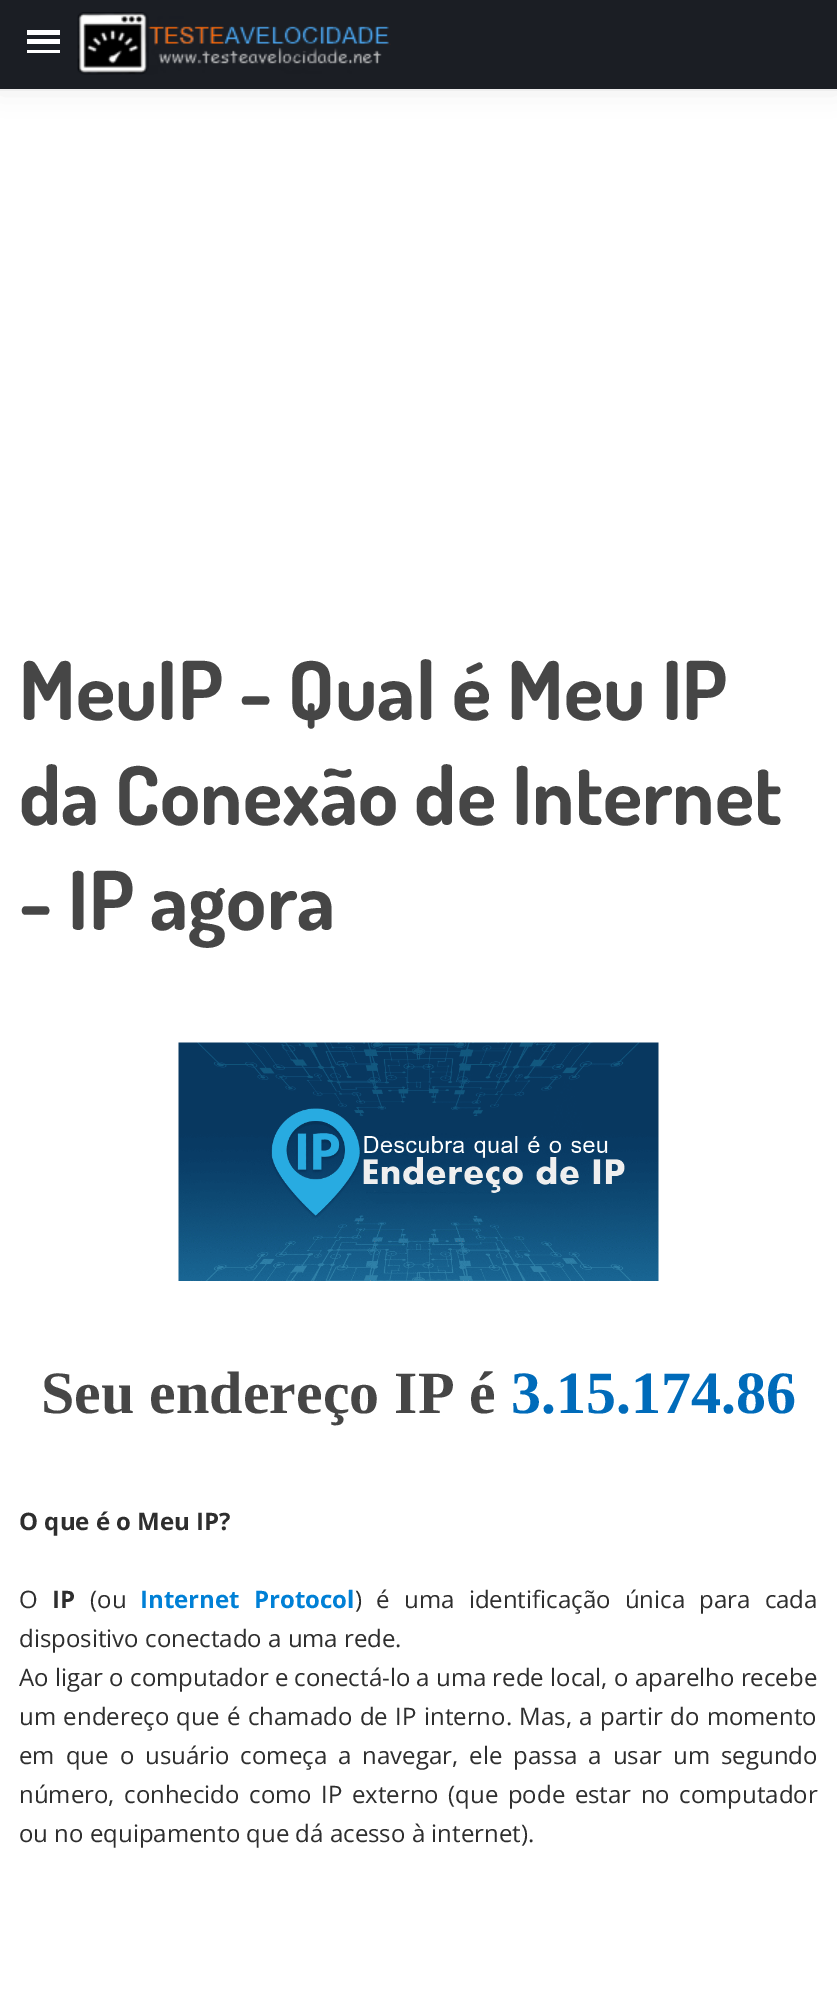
%!PS
<< /PageSize [837 1989] /PageUsesTransparency true >> setpagedevice
/rgb { 3 { 255 div 3 1 roll } repeat setrgbcolor } def
/font { [ exch dup neg 0 0 3 -1 roll 0 0 ] selectfont } def
/alpha { dup .setfillconstantalpha .setstrokeconstantalpha } def
/roundrect { 5 dict begin { /r /h /w /y /x } { exch def } forall
  x r add y moveto x w add y 2 copy h add r arct x w add y h add x 1 index r arct
  x y h add x y r arct x y 2 copy exch w add exch r arct closepath end } def
/shadow { 12 dict begin { /a /b /q /h /w /y /x } { exch def } forall gsave /was 0 def
  9 -2 -9 { dup b mul 4 div /e exch def 1 sub .425 mul 2.718 exch exp 1 add a .99 .min exch div /now exch def
    1 1 now sub 1 was sub div sub alpha /was now def
    w h .min e 2 mul add 0 gt { x e sub y e sub w e 2 mul add h e 2 mul add
      q e add b .6 mul add w h .min 2 div e add .min 0 .max roundrect fill } if } for grestore end } def
/picture { 5 dict begin { /h /w /y /x /name } { exch def } forall
  gsave x y translate w h scale
  w h 8 [w 0 0 h 0 0] name (r) file false 3 colorimage grestore end } def
0 .pushpdf14devicefilter
0 1989 translate 1 -1 scale
4 setmiterlimit
255 255 255 rgb
0 0 837 1989 rectfill
0 0 0 rgb
0 -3 837 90 0 14 0.1 shadow
[
  [0 0 837 89 27 30 36]
  [0 89 837 2 238 238 238]
  [27 30 33 5 255 255 255]
  [27 39 33 5 255 255 255]
  [27 50 33 3 255 255 255]
] { aload pop rgb rectfill } forall
(img/1.rgb) 77 12 314 63 picture
(img/2.rgb) 178 1042 481 239 picture
/Dosis-Bold 81 font
70 70 70 rgb
[
  [(MeuIP - Qual é Meu IP) 19 720]
  [(da Conexão de Internet) 19 825]
  [(- IP agora) 19 930]
] { aload pop moveto show } forall
/LiberationSerif-Bold 60 font
41 1413 moveto (Seu endereço IP é) show
0 107 186 rgb
511 1413 moveto (3.15.174.86) show
/OpenSans-Bold 24 font
46 46 46 rgb
19 1530 moveto (O que é o Meu IP?) show
/OpenSans-Regular 24 font
19 1608 moveto (O) show
/OpenSans-Bold 24 font
52 1608 moveto (IP) show
/OpenSans-Regular 24 font
90 1608 moveto (\(ou) show
/OpenSans-Bold 24 font
0 128 214 rgb
140 1608 moveto 8 0 32 (Internet Protocol) widthshow
/OpenSans-Regular 24 font
46 46 46 rgb
355 1608 moveto 8 0 32 (\) é uma identificação única para cada) widthshow
19 1647 moveto (dispositivo conectado a uma rede.) show
19 1686 moveto (Ao ligar o computador e conectá-lo a uma rede local, o aparelho recebe) show
19 1725 moveto 1.25 0 32 (um endereço que é chamado de IP interno. Mas, a partir do momento) widthshow
19 1764 moveto 4.75 0 32 (em que o usuário começa a navegar, ele passa a usar um segundo) widthshow
19 1803 moveto 3.25 0 32 (número, conhecido como IP externo \(que pode estar no computador) widthshow
19 1842 moveto (ou no equipamento que dá acesso à internet\).) show
.poppdf14devicefilter showpage
